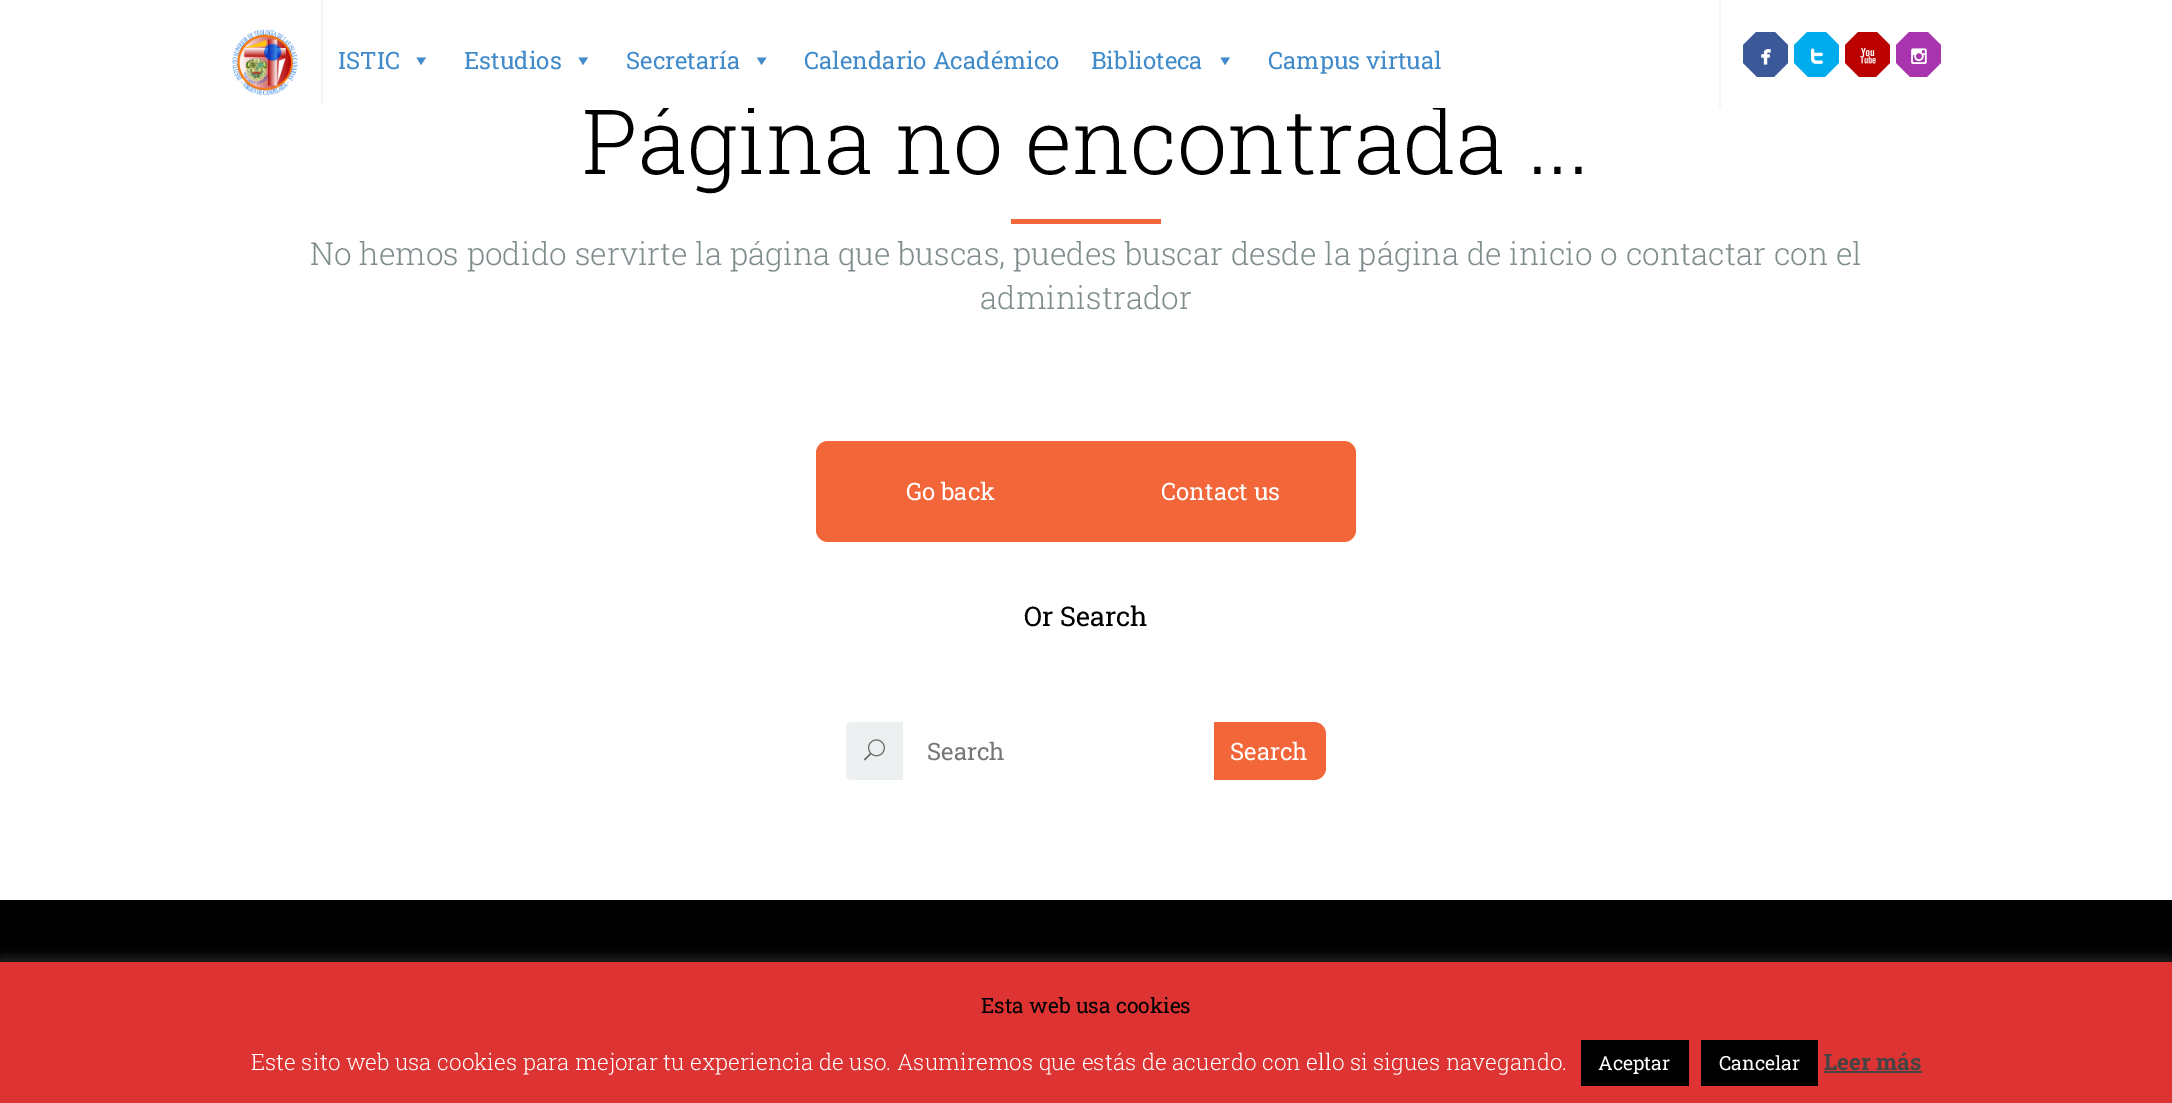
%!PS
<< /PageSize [2172 1103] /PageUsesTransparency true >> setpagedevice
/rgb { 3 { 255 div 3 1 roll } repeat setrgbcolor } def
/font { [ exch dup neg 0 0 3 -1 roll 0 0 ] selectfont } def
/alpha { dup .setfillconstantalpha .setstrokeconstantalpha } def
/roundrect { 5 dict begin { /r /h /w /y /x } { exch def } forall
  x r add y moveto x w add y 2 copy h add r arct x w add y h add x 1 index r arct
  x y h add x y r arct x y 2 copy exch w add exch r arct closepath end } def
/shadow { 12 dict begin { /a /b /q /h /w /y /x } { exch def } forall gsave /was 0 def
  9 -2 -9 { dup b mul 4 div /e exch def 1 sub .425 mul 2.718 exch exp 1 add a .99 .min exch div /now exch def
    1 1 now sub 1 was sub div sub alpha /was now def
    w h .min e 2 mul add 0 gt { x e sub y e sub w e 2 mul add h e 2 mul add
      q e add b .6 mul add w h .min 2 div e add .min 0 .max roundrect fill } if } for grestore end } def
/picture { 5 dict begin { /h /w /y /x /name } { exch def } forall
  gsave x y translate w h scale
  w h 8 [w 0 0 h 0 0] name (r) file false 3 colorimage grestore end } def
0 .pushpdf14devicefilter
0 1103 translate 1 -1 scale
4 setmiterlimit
255 255 255 rgb
0 0 2172 1103 rectfill
245 245 245 rgb
321 0 2 104 rectfill
(img/1.rgb) 232 29 66 67 picture
66 139 202 rgb
426 57.5 moveto 421 65 lineto 416.5 57.5 lineto closepath fill
588 57.5 moveto 583 65 lineto 578.5 57.5 lineto closepath fill
766.5 57.5 moveto 761.5 65 lineto 757 57.5 lineto closepath fill
1230 57.5 moveto 1225 65 lineto 1220.5 57.5 lineto closepath fill
245 245 245 rgb
1719 0 2 108 rectfill
59 89 152 rgb
1743 45 moveto 1756 32 lineto 1775 32 lineto 1788 45 lineto 1788 63 lineto 1774 77 lineto 1757 77 lineto 1743 63 lineto closepath fill
(img/2.rgb) 1761 49 10 16 picture
0 172 237 rgb
1794 45 moveto 1807 32 lineto 1826 32 lineto 1839 45 lineto 1839 63 lineto 1825 77 lineto 1808 77 lineto 1794 63 lineto closepath fill
(img/3.rgb) 1810 48 13 16 picture
187 0 0 rgb
1845 45 moveto 1858 32 lineto 1877 32 lineto 1890 45 lineto 1890 63 lineto 1876 77 lineto 1859 77 lineto 1845 63 lineto closepath fill
(img/4.rgb) 1860 48 16 16 picture
168 53 174 rgb
1896 45 moveto 1909 32 lineto 1928 32 lineto 1941 45 lineto 1941 63 lineto 1927 77 lineto 1910 77 lineto 1896 63 lineto closepath fill
(img/5.rgb) 1911 48 16 16 picture
243 102 57 rgb
1011 219 150 5 rectfill
828 441 moveto 1086 441 lineto 1086 542 lineto 828 542 lineto 821.5 542 816 536.5 816 530 curveto 816 453 lineto 816 446.5 821.5 441 828 441 curveto closepath fill
1086 441 moveto 1344 441 lineto 1350.5 441 1356 446.5 1356 453 curveto 1356 530 lineto 1356 536.5 1350.5 542 1344 542 curveto 1086 542 lineto closepath fill
236 240 241 rgb
852 722 moveto 903 722 lineto 903 780 lineto 852 780 lineto 848.5 780 846 777.5 846 774 curveto 846 728 lineto 846 724.5 848.5 722 852 722 curveto closepath fill
(img/6.rgb) 864 739 21 22 picture
243 102 57 rgb
1212 722 moveto 1314 722 lineto 1320.5 722 1326 727.5 1326 734 curveto 1326 768 lineto 1326 774.5 1320.5 780 1314 780 curveto 1212 780 lineto closepath fill
255 255 255 rgb
1212 722 2 58 rectfill
0 0 0 rgb
0 900 2172 62 rectfill
172 171 171 rgb
0 960 2172 143 0 7.5 0.3 shadow
[
  [0 962 2172 141 221 51 51]
  [1581 1040 108 46 0 0 0]
  [1701 1040 117 46 0 0 0]
  [1824 1071 98 2 68 68 68]
] { aload pop rgb rectfill } forall
/RobotoSlab-Regular 24 font
66 139 202 rgb
[
  [(ISTIC) 338 69]
  [(Estudios) 464 69]
  [(Secretaría) 626 69]
  [(Calendario Académico) 804 69]
  [(Biblioteca) 1091 69]
  [(Campus virtual) 1268 69]
] { aload pop moveto show } forall
/RobotoSlab-Light 90 font
0 0 0 rgb
582 174 moveto (Página no encontrada ...) show
255 255 255 rgb
663 105 783 3 rectfill
/RobotoSlab-Light 31.5 font
127 140 141 rgb
310 265 moveto (No hemos podido servirte la página que buscas, puedes buscar desde la página de inicio o contactar con el) show
980 309 moveto (administrador) show
/RobotoSlab-Regular 24 font
255 255 255 rgb
906 500 moveto (Go back) show
1161 500 moveto (Contact us) show
/RobotoSlab-Regular 27 font
0 0 0 rgb
1024 626 moveto (Or Search) show
/RobotoSlab-Regular 24 font
119 119 119 rgb
927 760 moveto (Search) show
255 255 255 rgb
1230 760 moveto (Search) show
/RobotoSlab-Regular 21 font
0 0 0 rgb
981 1013 moveto (Esta web usa cookies) show
/RobotoSlab-Light 22.5 font
255 255 255 rgb
251 1070 moveto (Este sito web usa cookies para mejorar tu experiencia de uso. Asumiremos que estás de acuerdo con ello si sigues navegando.) show
/RobotoSlab-Regular 19.5 font
1598 1070 moveto (Aceptar) show
1719 1070 moveto (Cancelar) show
/RobotoSlab-Bold 22.5 font
68 68 68 rgb
1824 1070 moveto (Leer más) show
.poppdf14devicefilter showpage
